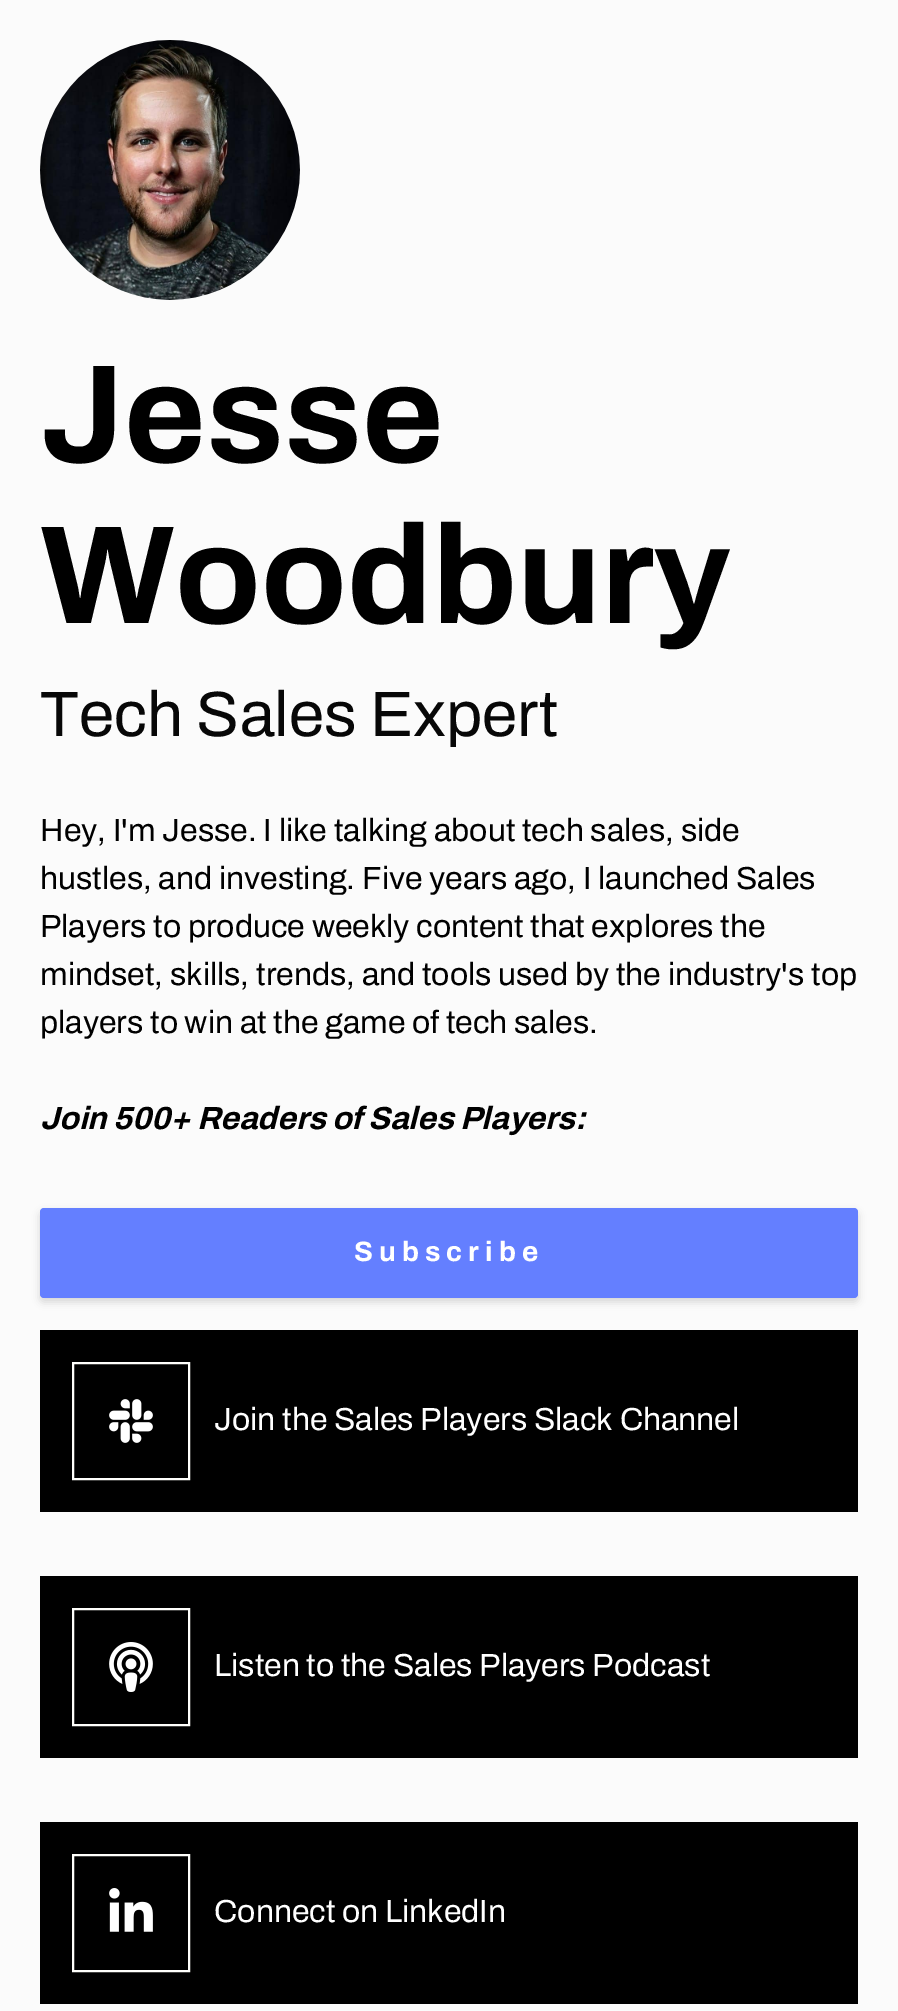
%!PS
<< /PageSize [898 2011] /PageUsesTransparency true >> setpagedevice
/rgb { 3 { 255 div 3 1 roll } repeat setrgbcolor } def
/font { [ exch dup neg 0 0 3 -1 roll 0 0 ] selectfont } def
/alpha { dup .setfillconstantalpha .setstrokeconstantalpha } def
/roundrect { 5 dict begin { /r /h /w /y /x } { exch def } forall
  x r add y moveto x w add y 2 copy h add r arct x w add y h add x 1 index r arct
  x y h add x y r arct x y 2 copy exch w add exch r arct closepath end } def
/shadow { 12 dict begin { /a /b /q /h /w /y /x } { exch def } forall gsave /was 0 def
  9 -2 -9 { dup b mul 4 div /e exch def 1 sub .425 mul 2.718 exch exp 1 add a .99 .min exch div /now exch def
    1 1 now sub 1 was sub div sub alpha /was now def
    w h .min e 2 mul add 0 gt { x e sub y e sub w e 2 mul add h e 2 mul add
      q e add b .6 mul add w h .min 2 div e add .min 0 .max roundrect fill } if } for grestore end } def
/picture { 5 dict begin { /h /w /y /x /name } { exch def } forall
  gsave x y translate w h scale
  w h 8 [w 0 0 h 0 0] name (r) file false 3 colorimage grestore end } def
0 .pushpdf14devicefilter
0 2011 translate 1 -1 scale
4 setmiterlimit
251 251 251 rgb
0 0 898 2011 rectfill
(img/1.rgb) 40 40 260 260 picture
0 0 0 rgb
40 1212 818 90 4 4 0.15 shadow
100 127 255 rgb
40 1208 818 90 4 roundrect fill
0 0 0 rgb
40 1330 818 182 rectfill
255 255 252 rgb
2 setlinewidth
73 1363 116 116 rectstroke
(img/2.rgb) 109 1399 44 44 picture
0 0 0 rgb
40 1576 818 182 rectfill
255 255 252 rgb
73 1609 116 116 rectstroke
(img/3.rgb) 109 1642 44 50 picture
0 0 0 rgb
40 1822 818 182 rectfill
255 255 252 rgb
73 1855 116 116 rectstroke
(img/4.rgb) 109 1888 44 44 picture
/Archivo-Bold 140 font
0 0 0 rgb
40 462 moveto (Jesse) show
40 623 moveto (Woodbury) show
/Archivo-Regular 64 font
7 7 7 rgb
40 736 moveto (Tech Sales Expert) show
/Archivo-Regular 32 font
0 0 0 rgb
[
  [(Hey, I'm Jesse. I like talking about tech sales, side) 40 841]
  [(hustles, and investing. Five years ago, I launched Sales) 40 889]
  [(Players to produce weekly content that explores the) 40 937]
  [(mindset, skills, trends, and tools used by the industry's top) 40 985]
  [(players to win at the game of tech sales.) 40 1033]
] { aload pop moveto show } forall
/Archivo-BoldItalic 32 font
40 1129 moveto (Join 500+ Readers of Sales Players:) show
/Archivo-Bold 28 font
255 255 255 rgb
354 1261 moveto 6 0 (Subscribe) ashow
/Archivo-Regular 32 font
[
  [(Join the Sales Players Slack Channel) 214 1430]
  [(Listen to the Sales Players Podcast) 214 1676]
  [(Connect on LinkedIn) 214 1922]
] { aload pop moveto show } forall
.poppdf14devicefilter showpage
